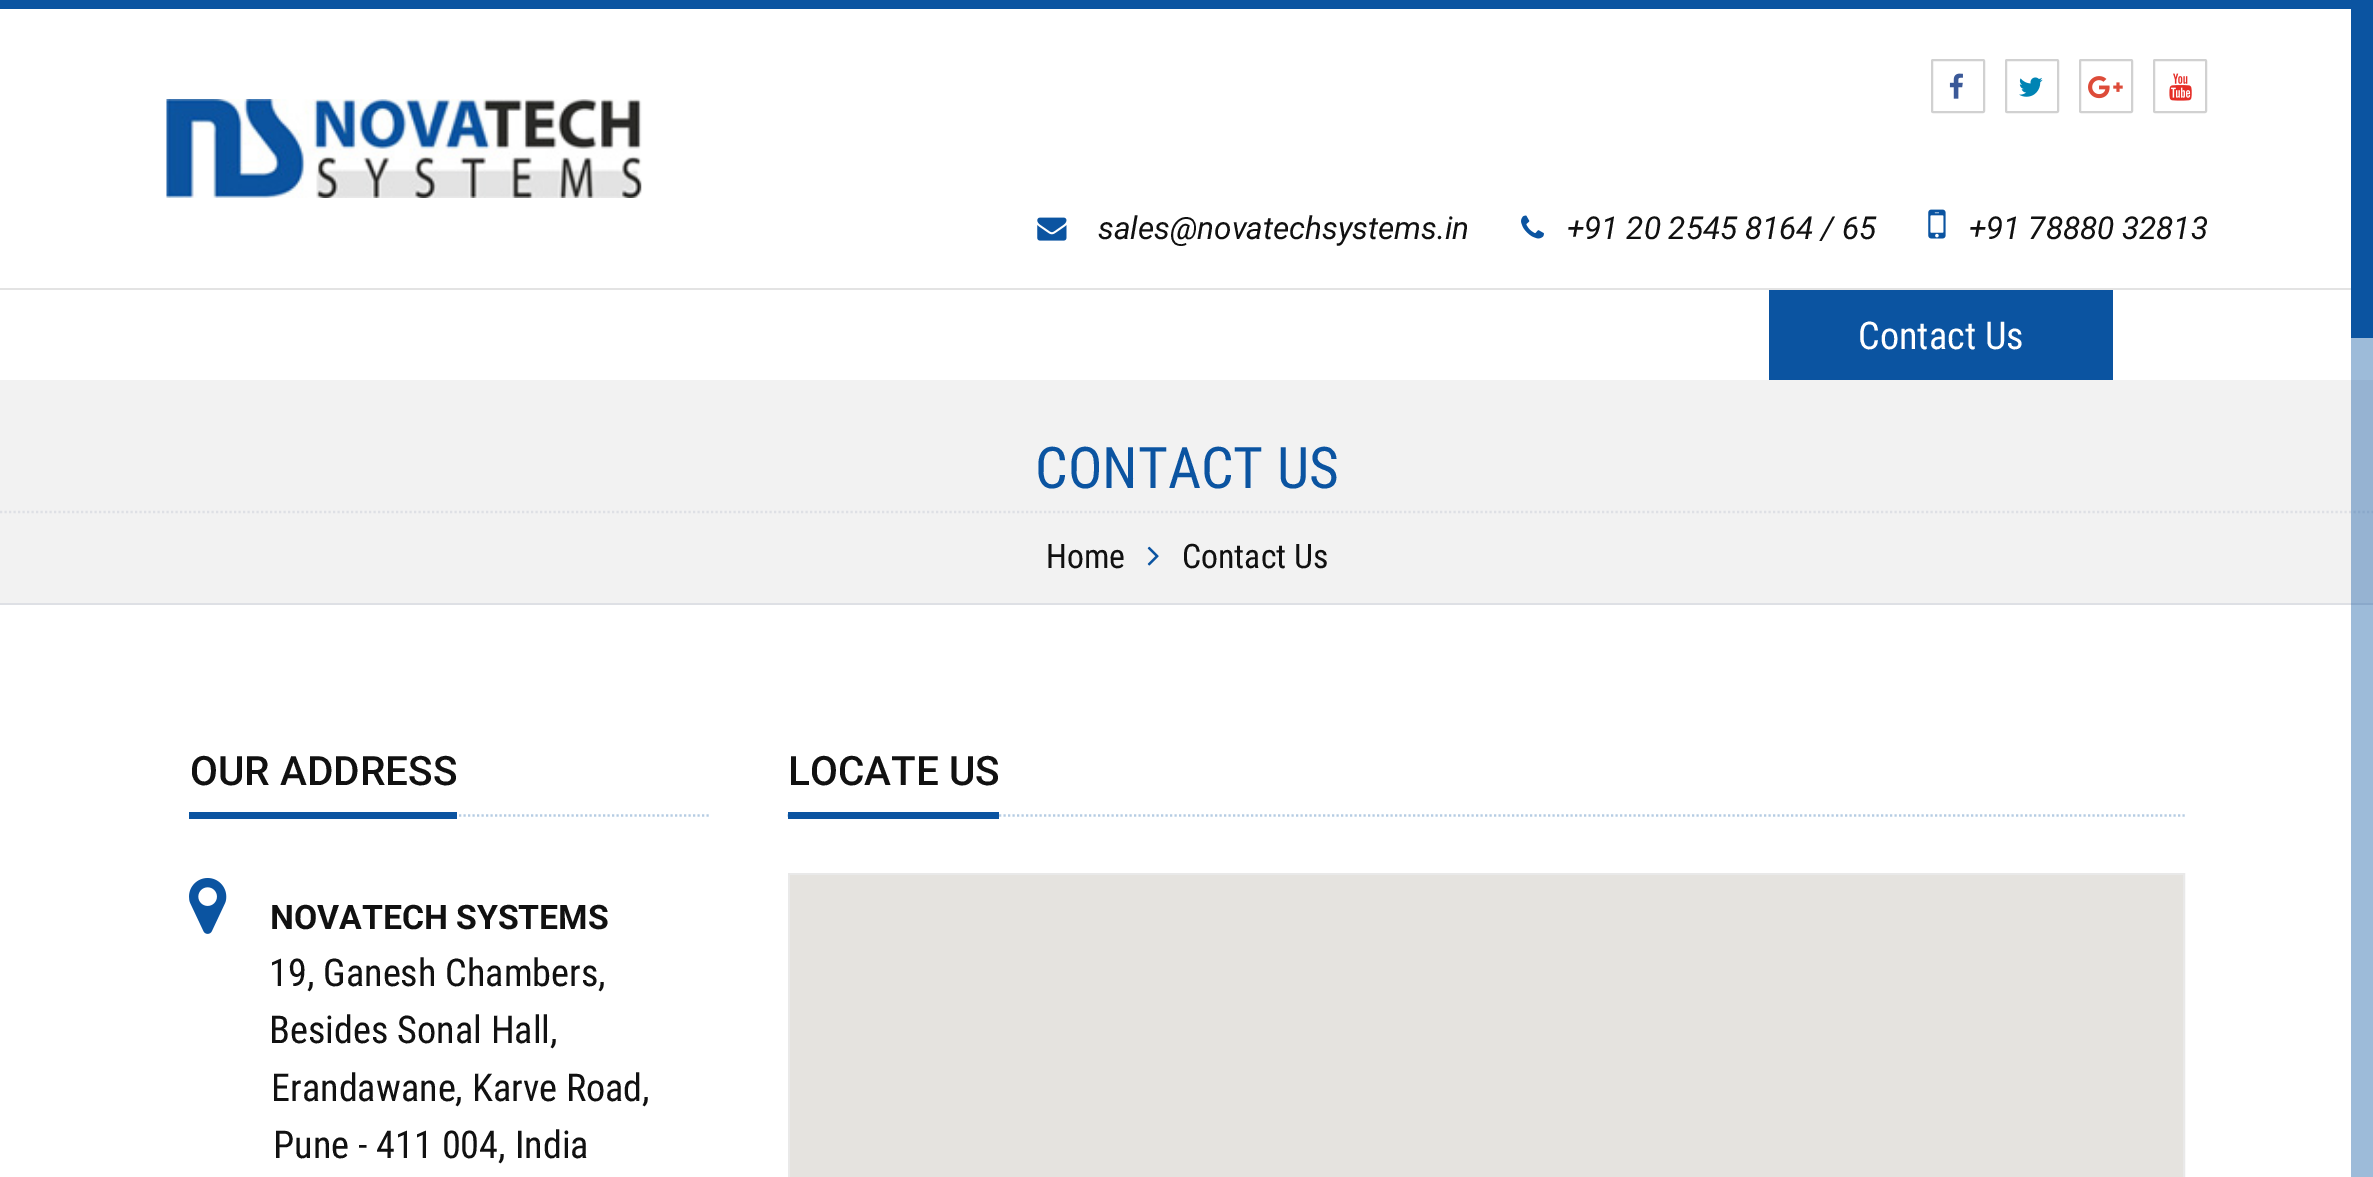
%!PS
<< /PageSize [2373 1177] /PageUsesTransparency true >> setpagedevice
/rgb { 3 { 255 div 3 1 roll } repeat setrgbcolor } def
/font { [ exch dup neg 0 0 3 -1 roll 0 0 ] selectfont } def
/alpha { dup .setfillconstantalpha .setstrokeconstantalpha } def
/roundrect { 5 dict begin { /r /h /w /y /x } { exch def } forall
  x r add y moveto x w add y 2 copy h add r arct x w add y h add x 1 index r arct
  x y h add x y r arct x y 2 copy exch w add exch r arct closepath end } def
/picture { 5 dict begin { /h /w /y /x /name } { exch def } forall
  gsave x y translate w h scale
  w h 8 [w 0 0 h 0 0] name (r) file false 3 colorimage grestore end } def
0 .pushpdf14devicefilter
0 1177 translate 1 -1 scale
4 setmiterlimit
255 255 255 rgb
0 0 2373 1177 rectfill
11 84 161 rgb
0 0 2351 9 rectfill
227 227 227 rgb
0 288 2351 2 rectfill
(img/1.rgb) 166 99 476 99 picture
209 209 209 rgb
2 setlinewidth
1932 60 52 52 1 roundrect stroke
(img/2.rgb) 1949 73 14 26 picture
2006 60 52 52 1 roundrect stroke
(img/3.rgb) 2019 77 24 20 picture
2080 60 52 52 1 roundrect stroke
(img/4.rgb) 2088 76 35 23 picture
2154 60 52 52 1 roundrect stroke
(img/5.rgb) 2169 73 23 28 picture
(img/6.rgb) 1037 217 30 24 picture
(img/7.rgb) 1521 215 23 24 picture
(img/8.rgb) 1928 209 18 30 picture
11 84 161 rgb
1769 290 344 90 rectfill
242 242 242 rgb
0 380 2373 223 rectfill
222 224 229 rgb
2.2 setlinewidth
[2.25 2.25] 0 setdash
0 512 moveto 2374 512 lineto stroke
0 603 2373 2 rectfill
(img/9.rgb) 1147 546 12 20 picture
182 204 227 rgb
189 815.5 moveto 709 815.5 lineto stroke
11 84 161 rgb
189 812 268 7 rectfill
(img/10.rgb) 189 878 38 56 picture
182 204 227 rgb
787.5 815.5 moveto 2185 815.5 lineto stroke
11 84 161 rgb
788 812 211 7 rectfill
233 233 233 rgb
2 setlinewidth
[] 0 setdash
789 874 1395 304 rectstroke
[
  [790 875 1393 302 229 227 223]
] { aload pop rgb rectfill } forall
0.4 alpha
[
  [2351 338 22 839 11 84 161]
] { aload pop rgb rectfill } forall
1 alpha
[
  [2351 0 22 338 11 84 161]
] { aload pop rgb rectfill } forall
/Roboto-Italic 31.5 font
17 17 17 rgb
[
  [(sales@novatechsystems.in) 1098 239]
  [(+91 20 2545 8164 / 65) 1567 239]
  [(+91 78880 32813) 1969 239]
] { aload pop moveto show } forall
/RobotoCondensed-Regular 38.25 font
255 255 255 rgb
1858 349 moveto (Contact Us) show
/RobotoCondensed-Regular 57.5 font
11 84 161 rgb
1035 488 moveto (CONTACT US) show
/RobotoCondensed-Regular 33.75 font
17 17 17 rgb
1046 568 moveto (Home) show
1182 568 moveto (Contact Us) show
/Roboto-Medium 40.5 font
190 785 moveto (OUR ADDRESS) show
/Roboto-Bold 33.75 font
270 929 moveto (NOVATECH SYSTEMS) show
/RobotoCondensed-Regular 38.25 font
[
  [(19, Ganesh Chambers,) 269 986]
  [(Besides Sonal Hall,) 269 1043]
  [(Erandawane, Karve Road,) 271 1101]
  [(Pune - 411 004, India) 273 1158]
] { aload pop moveto show } forall
/Roboto-Medium 40.5 font
788 785 moveto (LOCATE US) show
.poppdf14devicefilter showpage
